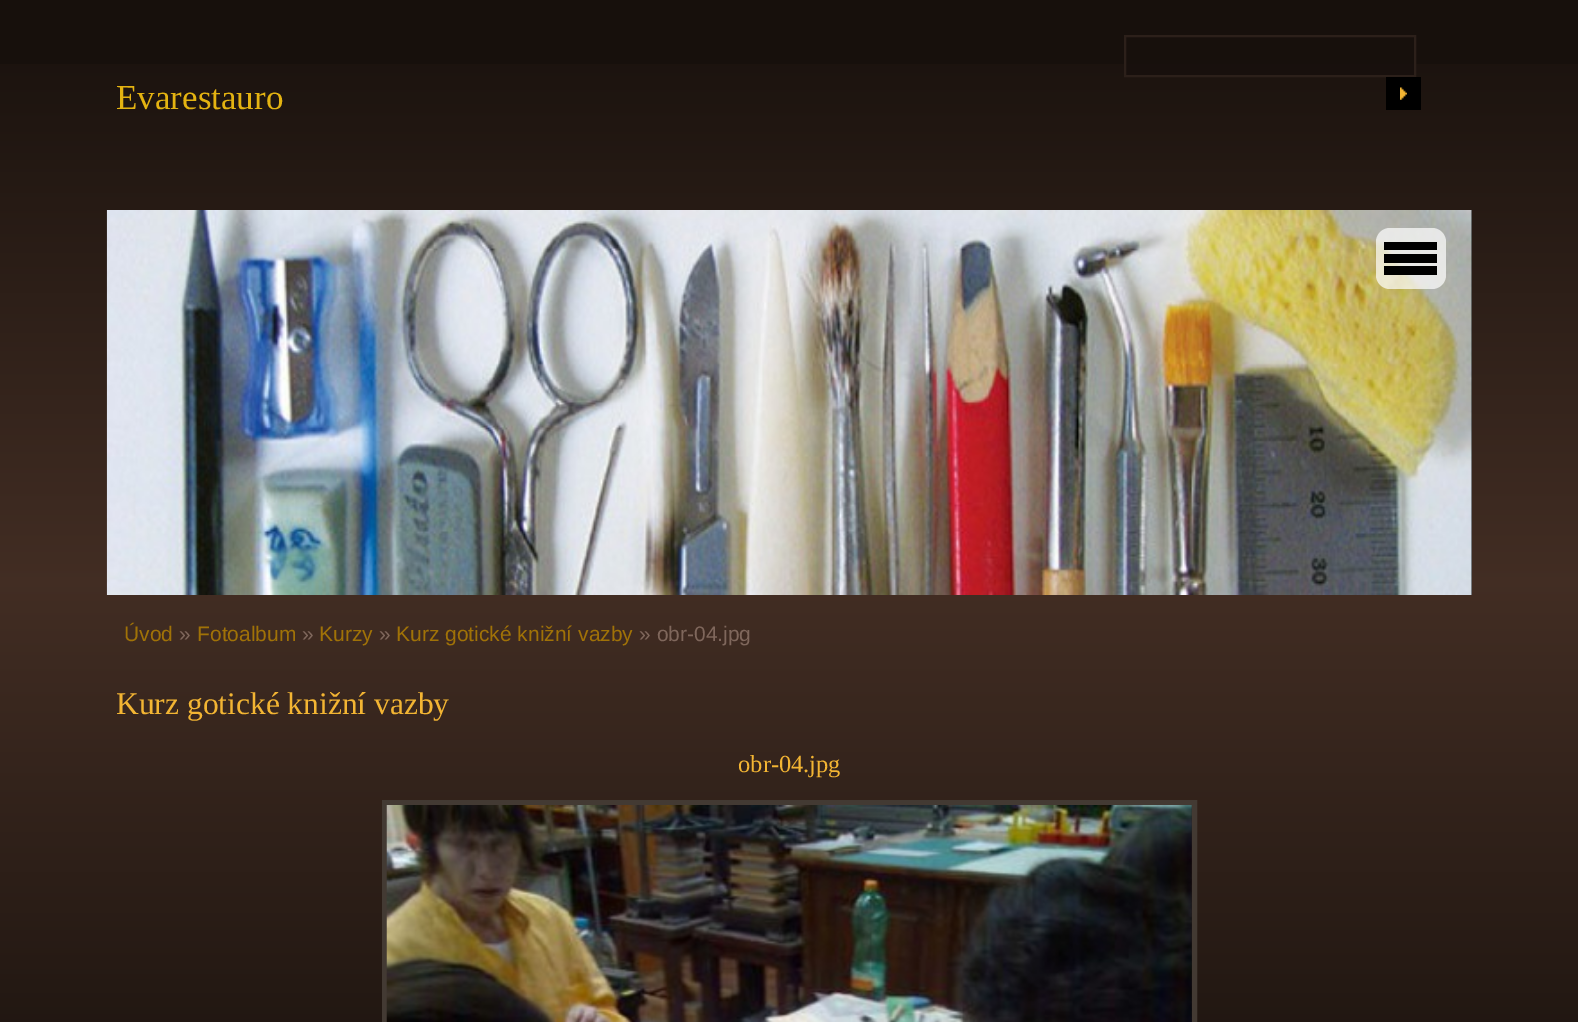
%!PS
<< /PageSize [1578 1022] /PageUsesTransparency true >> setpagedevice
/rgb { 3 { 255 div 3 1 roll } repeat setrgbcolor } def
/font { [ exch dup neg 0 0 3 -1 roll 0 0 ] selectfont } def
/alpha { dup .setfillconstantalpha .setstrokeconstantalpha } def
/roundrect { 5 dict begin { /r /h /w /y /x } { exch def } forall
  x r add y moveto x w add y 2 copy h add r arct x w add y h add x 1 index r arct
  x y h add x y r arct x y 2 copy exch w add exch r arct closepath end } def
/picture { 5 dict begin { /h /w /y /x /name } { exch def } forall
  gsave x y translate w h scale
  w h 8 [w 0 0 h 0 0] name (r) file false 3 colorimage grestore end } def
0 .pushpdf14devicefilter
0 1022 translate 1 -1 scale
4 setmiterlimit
23 16 12 rgb
0 0 1578 1022 rectfill
(img/1.rgb) 0 64 1578 958 picture
0 0 0 rgb
1471 210 1 385 rectfill
(img/2.rgb) 106 210 1366 385 picture
24 16 13 rgb
1126 64 288 11 rectfill
44 32 26 rgb
2 setlinewidth
1125 36 290 40 rectstroke
0 0 0 rgb
1386 77 35 33 rectfill
(img/3.rgb) 1400 87 7 13 picture
67 58 51 rgb
5 setlinewidth
384.5 802.5 810 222 rectstroke
(img/4.rgb) 386 805 806 217 picture
0.7 alpha
255 255 255 rgb
1376 228 70 61 14 roundrect fill
1 alpha
[
  [1384 242 53 8 0 0 0]
  [1384 254 53 9 0 0 0]
  [1384 266 53 9 0 0 0]
] { aload pop rgb rectfill } forall
/LiberationSerif-Regular 35 font
228 179 17 rgb
116 109 moveto (Evarestauro) show
/LiberationSans-Regular 21 font
160 114 7 rgb
124 641 moveto (Úvod) show
127 103 92 rgb
179 641 moveto (») show
160 114 7 rgb
197 641 moveto (Fotoalbum) show
127 103 92 rgb
302 641 moveto (») show
160 114 7 rgb
319 641 moveto (Kurzy) show
127 103 92 rgb
379 641 moveto (») show
160 114 7 rgb
396 641 moveto (Kurz gotické knižní vazby) show
127 103 92 rgb
639 641 moveto (» obr-04.jpg) show
/LiberationSerif-Regular 31.5 font
243 181 51 rgb
116 714 moveto (Kurz gotické knižní vazby) show
/LiberationSerif-Regular 24.5 font
738 772 moveto (obr-04.jpg) show
.poppdf14devicefilter showpage
